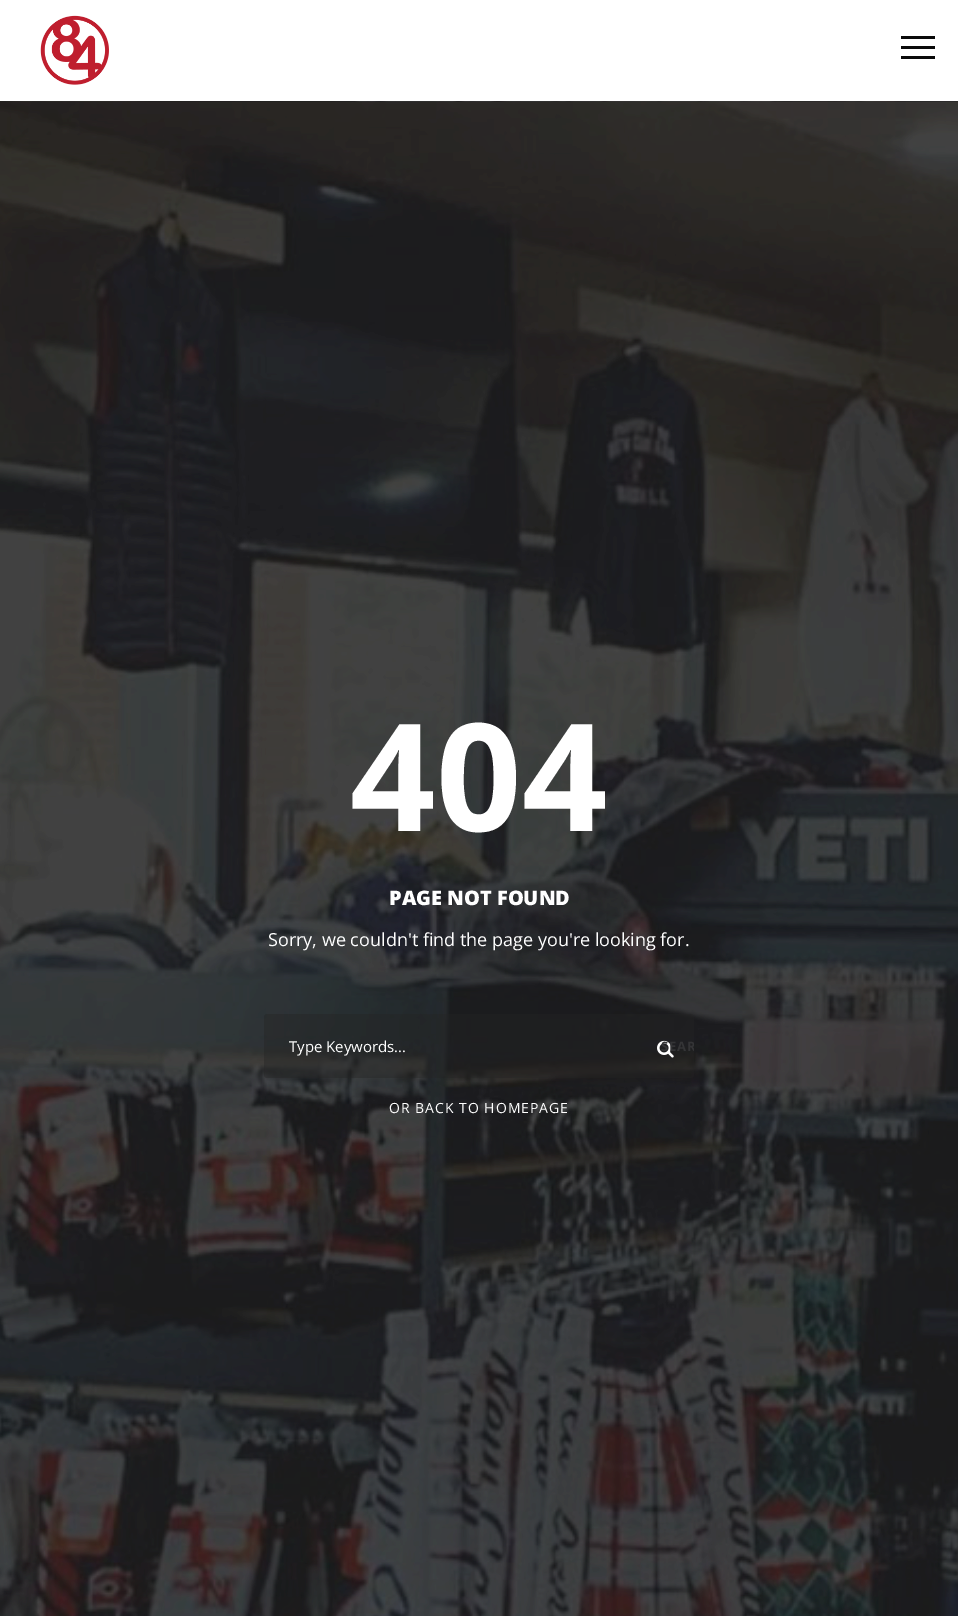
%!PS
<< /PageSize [958 1616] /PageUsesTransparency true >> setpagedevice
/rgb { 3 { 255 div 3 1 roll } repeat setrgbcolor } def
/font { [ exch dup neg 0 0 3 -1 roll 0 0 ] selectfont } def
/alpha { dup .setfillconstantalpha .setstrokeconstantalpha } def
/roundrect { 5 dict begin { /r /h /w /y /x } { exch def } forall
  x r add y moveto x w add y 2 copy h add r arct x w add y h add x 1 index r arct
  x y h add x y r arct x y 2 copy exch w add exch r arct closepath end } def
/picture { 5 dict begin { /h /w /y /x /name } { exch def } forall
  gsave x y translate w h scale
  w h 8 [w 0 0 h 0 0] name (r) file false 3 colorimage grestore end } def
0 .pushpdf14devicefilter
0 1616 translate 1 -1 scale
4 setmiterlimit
255 255 255 rgb
0 0 958 1616 rectfill
(img/1.rgb) 40 15 69 70 picture
[
  [901 36 34 3 10 10 10]
  [901 46 34 3 10 10 10]
  [901 56 34 3 10 10 10]
  [0 101 958 1515 33 33 33]
] { aload pop rgb rectfill } forall
(img/2.rgb) 0 101 958 1515 picture
0.4 alpha
35 35 35 rgb
264 1014 430 64 3 roundrect fill
1 alpha
(img/3.rgb) 657 1040 17 18 picture
/OpenSans-Bold 150 font
255 255 255 rgb
350 831 moveto (404) show
/OpenSans-ExtraBold 20 font
389 905 moveto (PAGE NOT FOUND) show
/OpenSans-Regular 18 font
268 946 moveto (Sorry, we couldn't find the page you're looking for.) show
/OpenSans-Regular 15 font
289 1052 moveto (Type Keywords...) show
gsave
628 1014 66 64 rectclip
/OpenSans-Bold 13 font
52 52 54 rgb
661 1051 moveto 1 0 (SEAR) ashow
grestore
/OpenSans-Regular 14 font
389 1113 moveto 1 0 (OR BACK TO HOMEPAGE) ashow
.poppdf14devicefilter showpage
